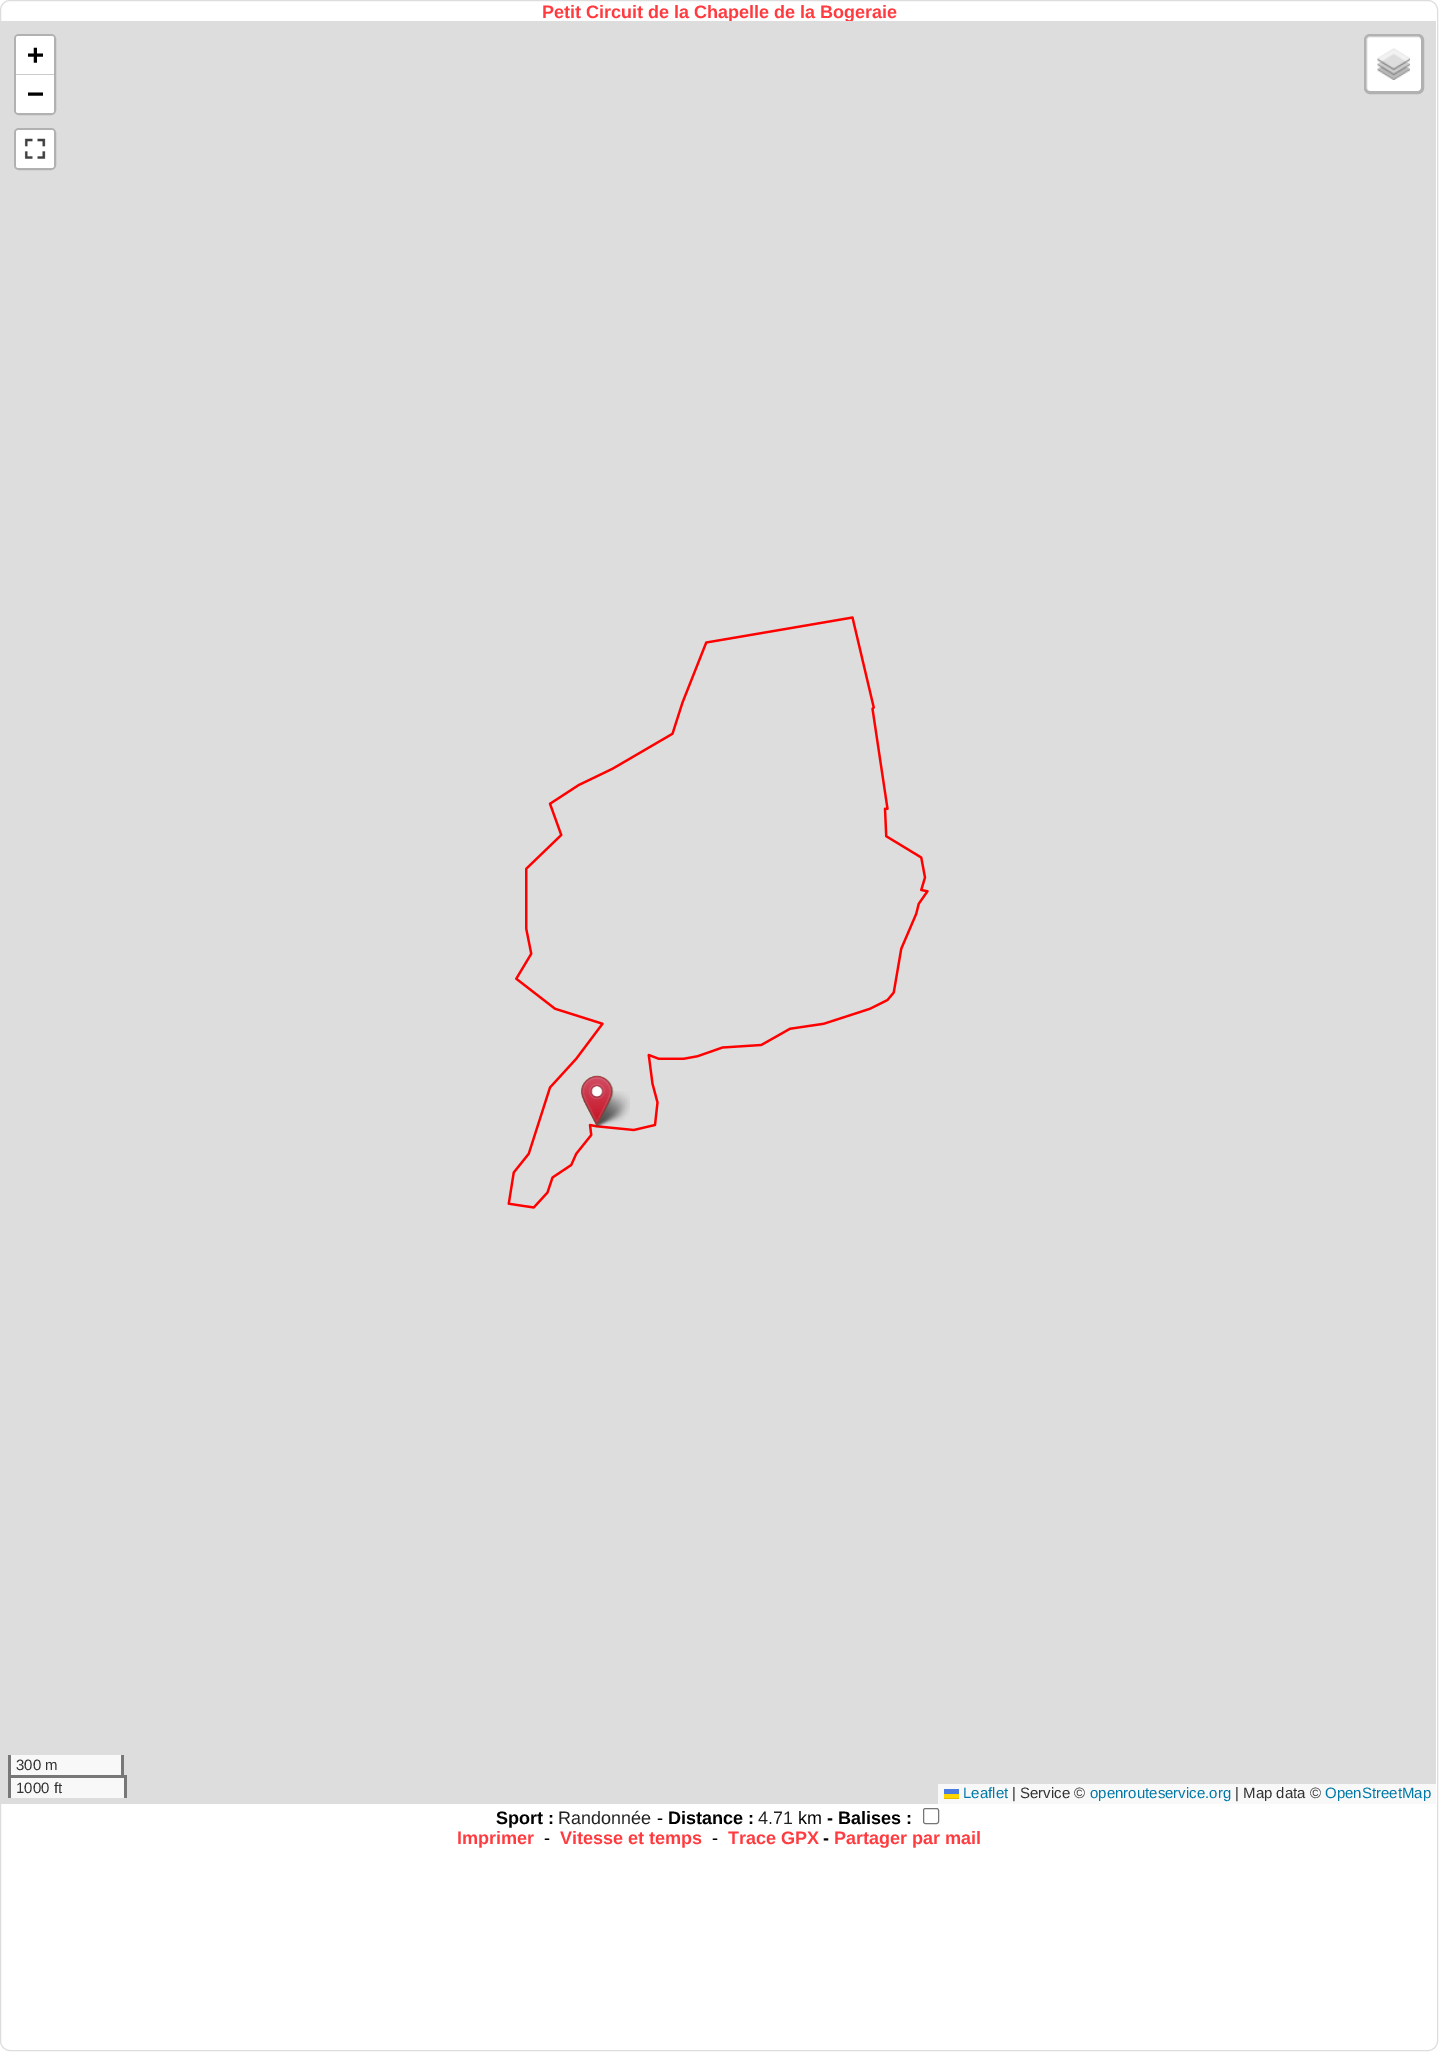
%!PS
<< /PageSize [1449 2070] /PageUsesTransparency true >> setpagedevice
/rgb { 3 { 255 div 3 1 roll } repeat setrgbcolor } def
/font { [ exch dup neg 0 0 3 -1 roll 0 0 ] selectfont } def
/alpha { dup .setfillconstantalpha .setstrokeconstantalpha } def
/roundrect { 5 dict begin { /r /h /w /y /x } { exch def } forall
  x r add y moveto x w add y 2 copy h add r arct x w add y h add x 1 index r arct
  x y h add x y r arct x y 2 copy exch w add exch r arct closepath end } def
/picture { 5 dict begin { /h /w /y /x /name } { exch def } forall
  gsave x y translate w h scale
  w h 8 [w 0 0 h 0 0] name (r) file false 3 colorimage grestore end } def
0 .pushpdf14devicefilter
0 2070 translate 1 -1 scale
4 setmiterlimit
255 255 255 rgb
0 0 1449 2070 rectfill
221 221 221 rgb
0.5 0.5 1437 2050 9.5 roundrect stroke
118 118 118 rgb
923.5 1808.5 15 15 2 roundrect stroke
/LiberationSans-Bold 18 font
255 59 63 rgb
542 18 moveto (Petit Circuit de la Chapelle de la Bogeraie) show
221 221 221 rgb
1 21 1435 1783 rectfill
248 248 248 rgb
11 1778 113 20 rectfill
177 177 177 rgb
3 setlinewidth
15.5 35.5 39 78 3.5 roundrect stroke
255 255 255 rgb
18.5 36 moveto 51.5 36 lineto 53 36 54 37 54 38.5 curveto 54 75 lineto 16 75 lineto 16 38.5 lineto 16 37 17 36 18.5 36 curveto closepath fill
204 204 204 rgb
16 74 38 1 rectfill
/DejaVuSansMono-Bold 28 font
0 0 0 rgb
27 64 moveto (+) show
255 255 255 rgb
16 75 moveto 54 75 lineto 54 110.5 lineto 54 112 53 113 51.5 113 curveto 18.5 113 lineto 17 113 16 112 16 110.5 curveto closepath fill
0 0 0 rgb
27 103 moveto (−) show
177 177 177 rgb
15.5 129.5 39 39 3.5 roundrect stroke
255 255 255 rgb
16 130 38 38 2.5 roundrect fill
(img/1.rgb) 24 138 22 21 picture
1366 36 55 55 4 roundrect fill
0.2 alpha
0 0 0 rgb
1365.5 35.5 57 57 4.5 roundrect stroke
1 alpha
(img/2.rgb) 1377 48 33 32 picture
[
  [11 1755 110 20 248 248 248]
  [121 1755 3 23 119 119 119]
  [8 1755 3 23 119 119 119]
] { aload pop rgb rectfill } forall
/LiberationSans-Regular 15 font
51 51 51 rgb
16 1770 moveto (300 m) show
[
  [8 1775 118 3 119 119 119]
  [124 1775 3 23 119 119 119]
  [8 1775 3 23 119 119 119]
] { aload pop rgb rectfill } forall
51 51 51 rgb
16 1793 moveto (1000 ft) show
248 248 248 rgb
938 1784 498 20 rectfill
0 120 168 rgb
963 1798 moveto (Leaflet) show
[
  [944 1789 15 5 76 123 225]
  [944 1794 15 4 255 213 0]
  [944 1798 15 1 224 188 0]
] { aload pop rgb rectfill } forall
51 51 51 rgb
1012 1798 moveto (| Service ©) show
0 120 168 rgb
1090 1798 moveto (openrouteservice.org) show
51 51 51 rgb
1235 1798 moveto (| Map data ©) show
0 120 168 rgb
1325 1798 moveto (OpenStreetMap) show
(img/3.rgb) 507 616 422 593 picture
(img/6.rgb) 593 1091 37 36 picture
(img/7.rgb) 593 1091 37 36 picture
(img/4.rgb) 581 1075 33 52 picture
(img/5.rgb) 581 1075 33 51 picture
/LiberationSans-Bold 18 font
0 0 0 rgb
496 1824 moveto (Sport :) show
/LiberationSans-Regular 18 font
34 34 34 rgb
558 1824 moveto (Randonnée) show
0 0 0 rgb
657 1824 moveto (-) show
/LiberationSans-Bold 18 font
668 1824 moveto (Distance :) show
/LiberationSans-Regular 18 font
34 34 34 rgb
758 1824 moveto (4.71) show
0 0 0 rgb
798 1824 moveto (km) show
/LiberationSans-Bold 18 font
827 1824 moveto (- Balises :) show
255 59 63 rgb
457 1844 moveto (Imprimer) show
/LiberationSans-Regular 18 font
0 0 0 rgb
544 1844 moveto (-) show
/LiberationSans-Bold 18 font
255 59 63 rgb
560 1844 moveto (Vitesse et temps) show
/LiberationSans-Regular 18 font
0 0 0 rgb
712 1844 moveto (-) show
/LiberationSans-Bold 18 font
255 59 63 rgb
728 1844 moveto (Trace GPX) show
0 0 0 rgb
823 1844 moveto (-) show
255 59 63 rgb
834 1844 moveto (Partager par mail) show
.poppdf14devicefilter showpage
